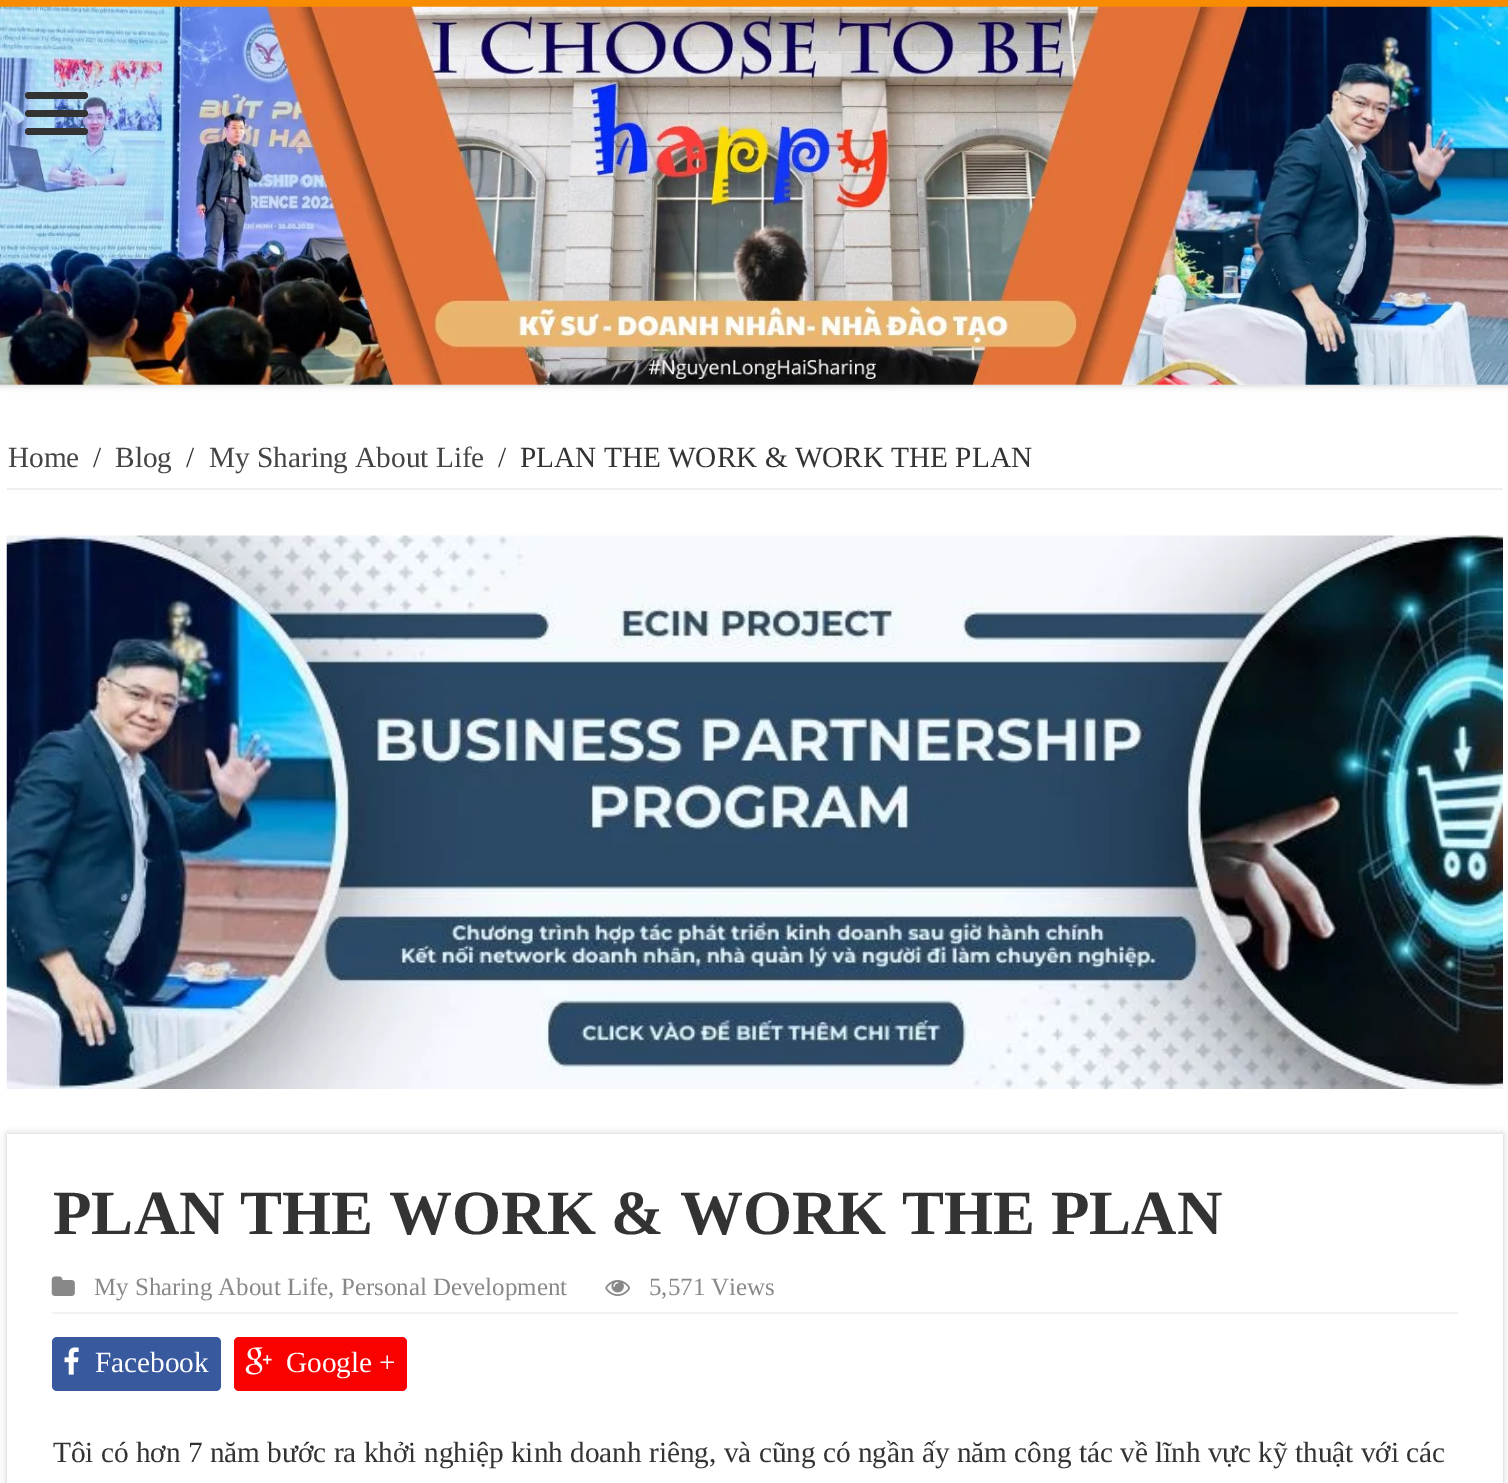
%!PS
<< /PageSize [1508 1483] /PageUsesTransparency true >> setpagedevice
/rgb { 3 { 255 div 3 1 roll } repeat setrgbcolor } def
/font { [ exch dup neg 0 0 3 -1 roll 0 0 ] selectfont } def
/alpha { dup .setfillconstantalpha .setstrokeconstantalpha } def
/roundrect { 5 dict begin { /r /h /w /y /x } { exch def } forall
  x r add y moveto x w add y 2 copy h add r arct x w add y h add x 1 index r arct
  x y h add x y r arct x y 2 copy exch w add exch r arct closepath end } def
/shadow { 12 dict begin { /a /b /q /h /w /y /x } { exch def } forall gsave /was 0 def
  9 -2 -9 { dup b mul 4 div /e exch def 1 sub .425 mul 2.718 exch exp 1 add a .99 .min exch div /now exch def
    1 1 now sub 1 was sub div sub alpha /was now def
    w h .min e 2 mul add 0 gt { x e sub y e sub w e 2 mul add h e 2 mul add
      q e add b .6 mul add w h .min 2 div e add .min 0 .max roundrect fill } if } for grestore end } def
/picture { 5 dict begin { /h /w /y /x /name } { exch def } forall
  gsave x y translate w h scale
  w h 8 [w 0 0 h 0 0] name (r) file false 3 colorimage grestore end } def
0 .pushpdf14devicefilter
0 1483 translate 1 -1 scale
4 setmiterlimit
255 255 255 rgb
0 0 1508 1483 rectfill
202 202 202 rgb
0 0 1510 385 0 3.5 1 shadow
248 140 0 rgb
0 0 1508 7 rectfill
(img/1.rgb) 0 6 1508 379 picture
51 51 51 rgb
25 92 63 7 3.5 roundrect fill
25 110 63 7 3.5 roundrect fill
25 128 63 7 3.5 roundrect fill
238 238 238 rgb
7 488 1496 2 rectfill
(img/2.rgb) 6 535 1497 554 picture
gsave
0 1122 moveto 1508 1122 lineto 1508 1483 lineto 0 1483 lineto closepath 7 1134 moveto 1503 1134 lineto 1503 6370 lineto 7 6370 lineto closepath eoclip newpath
202 202 202 rgb
7 1134 1496 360 0 3.5 1 shadow
grestore
242 242 242 rgb
52 1312 1406 2 rectfill
(img/3.rgb) 51 1276 24 20 picture
(img/4.rgb) 605 1280 25 16 picture
57 89 159 rgb
52 1337 169 54 5 roundrect fill
(img/5.rgb) 64 1347 15 28 picture
250 1 1 rgb
234 1337 173 54 5 roundrect fill
(img/6.rgb) 245 1347 27 28 picture
/LiberationSerif-Regular 29.25 font
68 68 68 rgb
8 467 moveto (Home) show
51 51 51 rgb
93 467 moveto (/) show
68 68 68 rgb
115 467 moveto (Blog) show
51 51 51 rgb
186 467 moveto (/) show
68 68 68 rgb
209 467 moveto (My Sharing About Life) show
51 51 51 rgb
498 467 moveto (/) show
520 467 moveto (PLAN THE WORK & WORK THE PLAN) show
/LiberationSerif-Bold 63 font
53 1234 moveto (PLAN THE WORK & WORK THE PLAN) show
/LiberationSerif-Regular 24.9 font
136 136 136 rgb
94 1295 moveto (My Sharing About Life, Personal Development) show
649 1295 moveto (5,571 Views) show
/LiberationSerif-Regular 29.25 font
255 255 255 rgb
95 1372 moveto (Facebook) show
286 1372 moveto (Google +) show
51 51 51 rgb
53 1462 moveto (Tôi có hơn 7 năm bước ra khởi nghiệp kinh doanh riêng, và cũng có ngần ấy năm công tác về lĩnh vực kỹ thuật với các) show
.poppdf14devicefilter showpage
